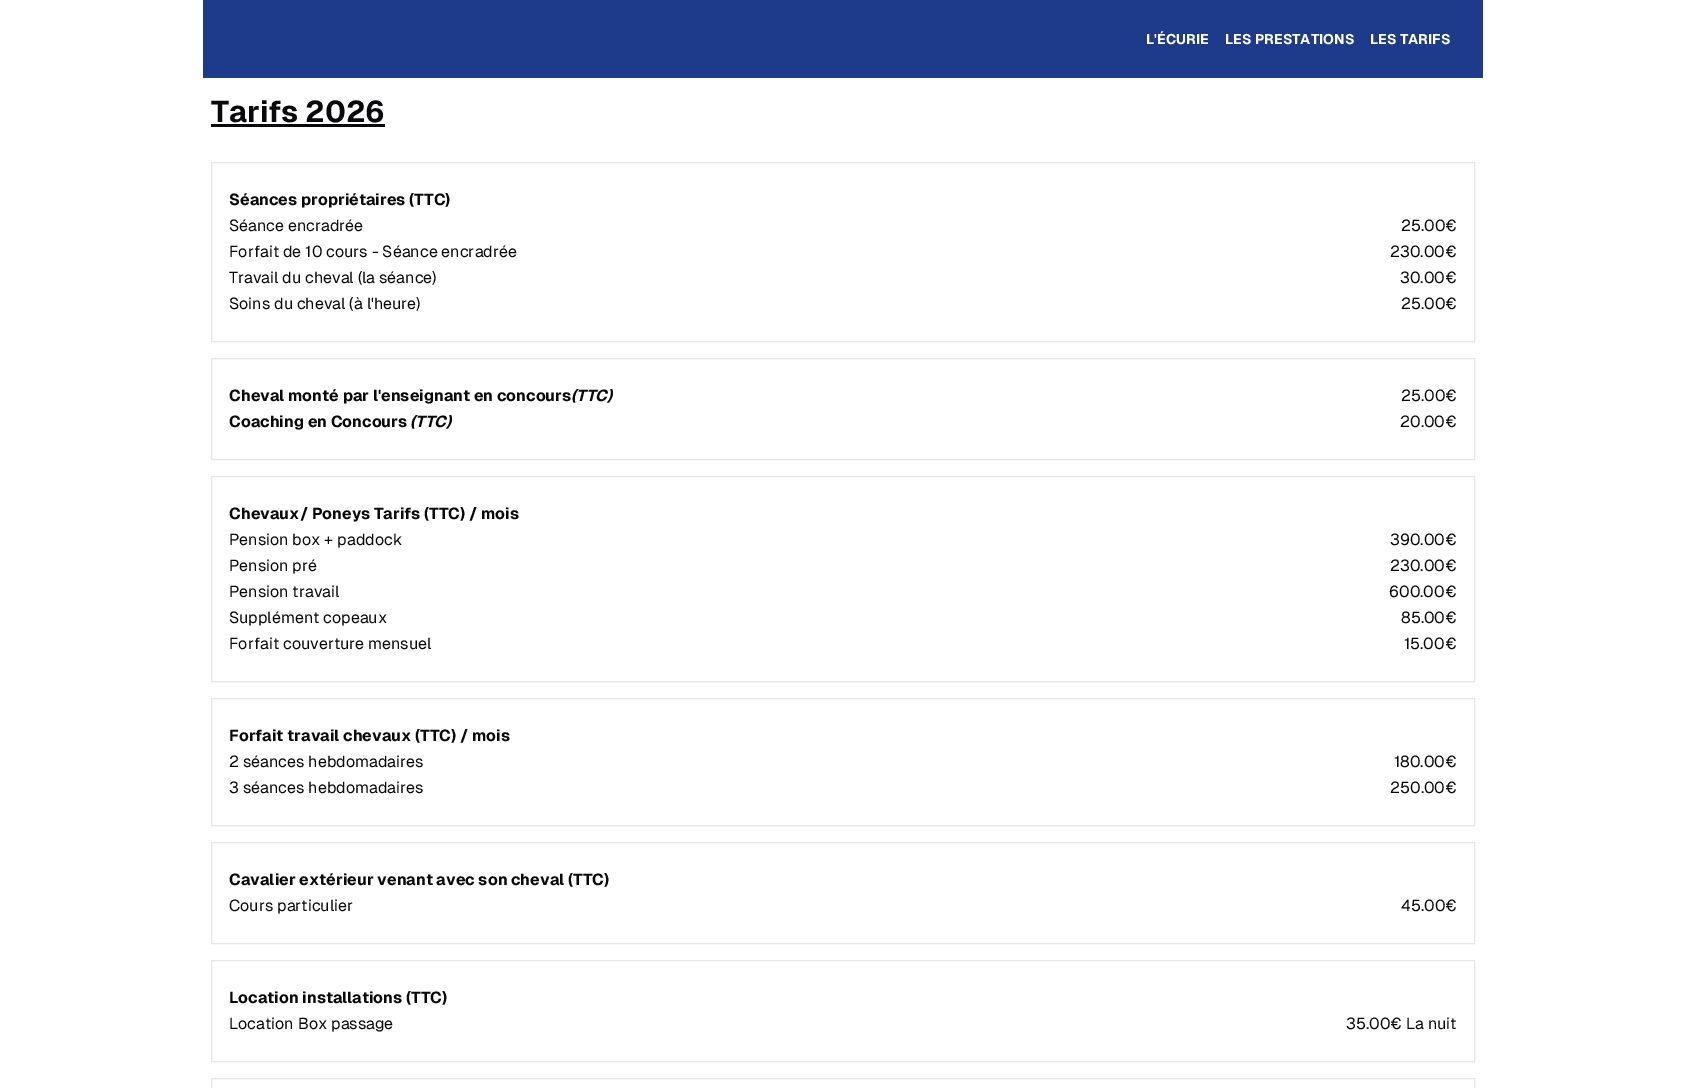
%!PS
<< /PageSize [1685 1088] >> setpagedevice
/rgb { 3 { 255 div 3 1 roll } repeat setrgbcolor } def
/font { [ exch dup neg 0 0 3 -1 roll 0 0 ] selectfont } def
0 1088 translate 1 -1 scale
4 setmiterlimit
255 255 255 rgb
0 0 1685 1088 rectfill
30 58 138 rgb
203 0 1280 78 rectfill
9 9 11 rgb
211 124 174 3 rectfill
229 231 235 rgb
211.5 162.5 1263 179 rectstroke
211.5 358.5 1263 101 rectstroke
211.5 476.5 1263 205 rectstroke
211.5 698.5 1263 127 rectstroke
211.5 842.5 1263 101 rectstroke
211.5 960.5 1263 101 rectstroke
211.5 1078.5 1263 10 rectstroke
/Geist-Bold 14 font
255 255 255 rgb
[
  [(L'ÉCURIE) 1146 44]
  [(LES PRESTATIONS) 1225 44]
  [(LES TARIFS) 1370 44]
] { aload pop moveto show } forall
/Geist-Bold 30 font
9 9 11 rgb
211 122 moveto (Tarifs 2026) show
/Geist-Bold 16 font
229 205 moveto (Séances propriétaires \(TTC\)) show
/Geist-Regular 16 font
[
  [(Séance encradrée) 229 231]
  [(25.00€) 1401 231]
  [(Forfait de 10 cours - Séance encradrée) 229 257]
  [(230.00€) 1390 257]
  [(Travail du cheval \(la séance\)) 229 283]
  [(30.00€) 1400 283]
  [(Soins du cheval \(à l'heure\)) 229 309]
  [(25.00€) 1401 309]
] { aload pop moveto show } forall
/Geist-Bold 16 font
229 401 moveto (Cheval monté par l'enseignant en concours) show
/Geist-BoldItalic 16 font
571 401 moveto (\(TTC\)) show
/Geist-Regular 16 font
1401 401 moveto (25.00€) show
/Geist-Bold 16 font
229 427 moveto (Coaching en Concours) show
/Geist-BoldItalic 16 font
410 427 moveto (\(TTC\)) show
/Geist-Regular 16 font
1400 427 moveto (20.00€) show
/Geist-Bold 16 font
229 519 moveto (Chevaux/ Poneys Tarifs \(TTC\) / mois) show
/Geist-Regular 16 font
[
  [(Pension box + paddock) 229 545]
  [(390.00€) 1390 545]
  [(Pension pré) 229 571]
  [(230.00€) 1390 571]
  [(Pension travail) 229 597]
  [(600.00€) 1389 597]
  [(Supplément copeaux) 229 623]
  [(85.00€) 1401 623]
  [(Forfait couverture mensuel) 229 649]
  [(15.00€) 1404 649]
] { aload pop moveto show } forall
/Geist-Bold 16 font
229 741 moveto (Forfait travail chevaux \(TTC\) / mois) show
/Geist-Regular 16 font
[
  [(2 séances hebdomadaires) 229 767]
  [(180.00€) 1394 767]
  [(3 séances hebdomadaires) 229 793]
  [(250.00€) 1390 793]
] { aload pop moveto show } forall
/Geist-Bold 16 font
229 885 moveto (Cavalier extérieur venant avec son cheval \(TTC\)) show
/Geist-Regular 16 font
229 911 moveto (Cours particulier) show
1401 911 moveto (45.00€) show
/Geist-Bold 16 font
229 1003 moveto (Location installations \(TTC\)) show
/Geist-Regular 16 font
229 1029 moveto (Location Box passage) show
1346 1029 moveto (35.00€ La nuit) show
showpage
